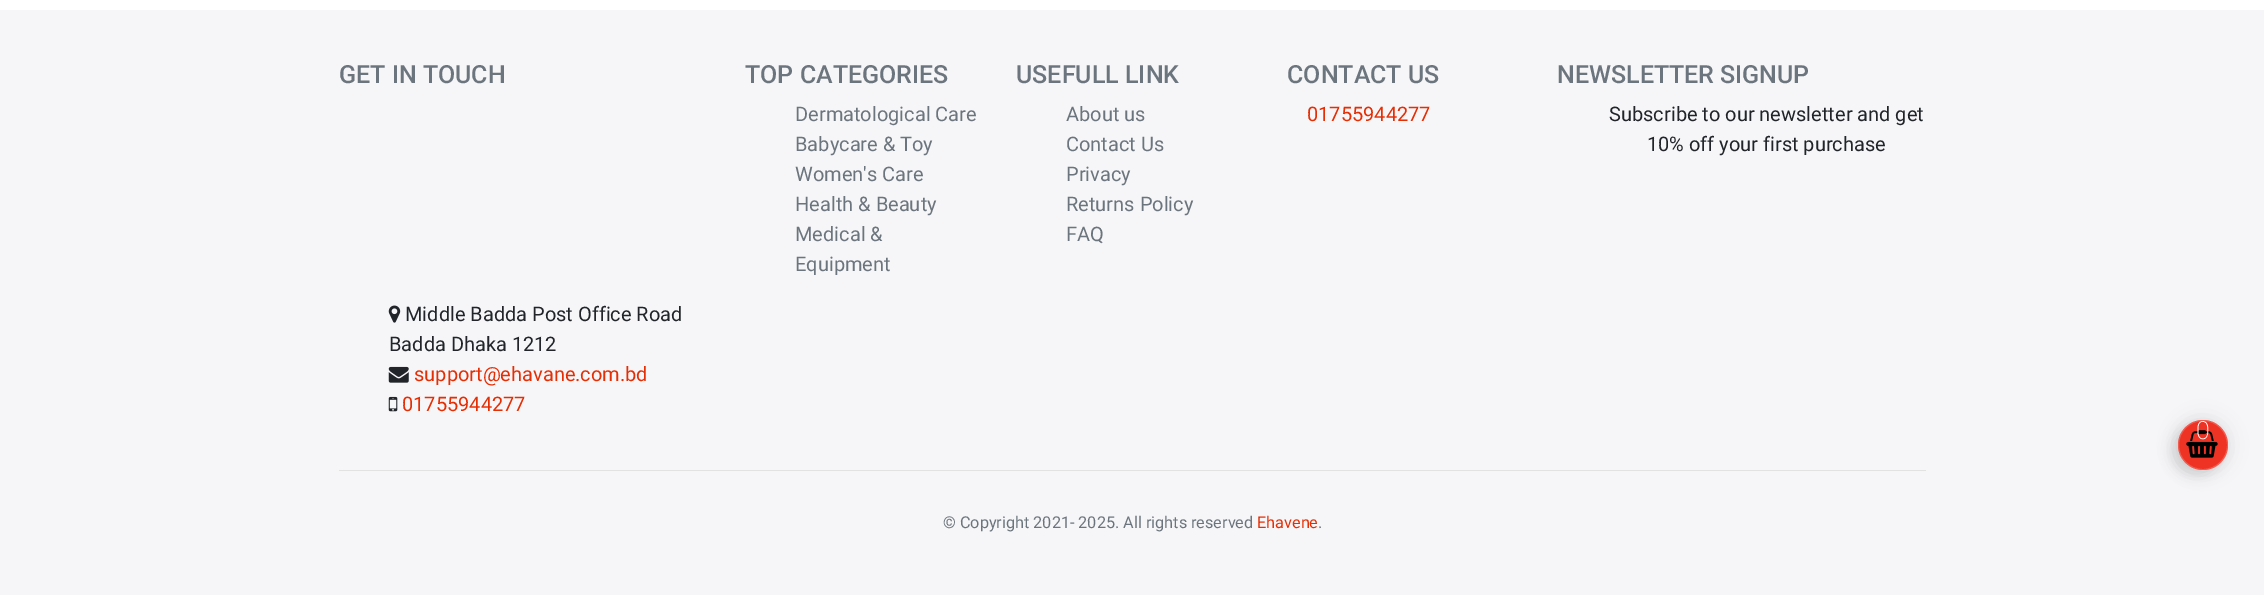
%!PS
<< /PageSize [2264 595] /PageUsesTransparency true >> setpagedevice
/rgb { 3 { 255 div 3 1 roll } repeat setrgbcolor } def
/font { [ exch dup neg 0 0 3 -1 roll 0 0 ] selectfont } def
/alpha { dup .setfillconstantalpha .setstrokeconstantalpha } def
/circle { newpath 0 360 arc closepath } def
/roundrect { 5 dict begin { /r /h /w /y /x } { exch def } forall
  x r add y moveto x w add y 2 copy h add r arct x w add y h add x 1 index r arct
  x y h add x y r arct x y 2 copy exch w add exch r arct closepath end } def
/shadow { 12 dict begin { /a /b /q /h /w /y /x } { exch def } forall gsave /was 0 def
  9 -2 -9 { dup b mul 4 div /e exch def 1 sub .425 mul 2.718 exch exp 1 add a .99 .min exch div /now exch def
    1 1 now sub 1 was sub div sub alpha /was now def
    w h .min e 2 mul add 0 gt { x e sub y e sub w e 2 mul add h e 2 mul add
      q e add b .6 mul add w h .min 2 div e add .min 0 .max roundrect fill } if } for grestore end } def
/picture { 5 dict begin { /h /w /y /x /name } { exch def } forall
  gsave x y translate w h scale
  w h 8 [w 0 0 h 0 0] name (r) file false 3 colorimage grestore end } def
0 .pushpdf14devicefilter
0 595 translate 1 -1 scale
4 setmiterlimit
255 255 255 rgb
0 0 2264 595 rectfill
246 246 248 rgb
0 10 2264 585 rectfill
(img/1.rgb) 388 305 13 18 picture
(img/2.rgb) 388 366 21 17 picture
(img/3.rgb) 388 396 10 16 picture
226 226 227 rgb
339 470 1587 1 rectfill
0 0 0 rgb
2171 426 50 50 25 6 0.1 shadow
2178 420 50 50 25 9.5 0.1 shadow
238 51 36 rgb
2203 445 25 circle fill
0.2 alpha
255 255 255 rgb
2203 445 24.5 circle stroke
1 alpha
(img/4.rgb) 2186 430 32 28 picture
/Roboto-Medium 25 font
108 117 125 rgb
339 83 moveto (GET IN TOUCH) show
/Roboto-Regular 20 font
33 37 41 rgb
405 321 moveto (Middle Badda Post Office Road) show
389 351 moveto (Badda Dhaka 1212) show
230 46 4 rgb
414 381 moveto (support@ehavane.com.bd) show
402 411 moveto (01755944277) show
/Roboto-Medium 25 font
108 117 125 rgb
745 83 moveto (TOP CATEGORIES) show
/Roboto-Regular 20 font
[
  [(Dermatological Care) 795 121]
  [(Babycare & Toy) 795 151]
  [(Women's Care) 795 181]
  [(Health & Beauty) 795 211]
  [(Medical &) 795 241]
  [(Equipment) 795 271]
] { aload pop moveto show } forall
/Roboto-Medium 25 font
1016 83 moveto (USEFULL LINK) show
/Roboto-Regular 20 font
[
  [(About us) 1066 121]
  [(Contact Us) 1066 151]
  [(Privacy) 1066 181]
  [(Returns Policy) 1066 211]
  [(FAQ) 1066 241]
] { aload pop moveto show } forall
/Roboto-Medium 25 font
1287 83 moveto (CONTACT US) show
/Roboto-Regular 20 font
230 46 4 rgb
1307 121 moveto (01755944277) show
/Roboto-Medium 25 font
108 117 125 rgb
1557 83 moveto (NEWSLETTER SIGNUP) show
/Roboto-Regular 20 font
33 37 41 rgb
1609 121 moveto (Subscribe to our newsletter and get) show
1647 151 moveto (10% off your first purchase) show
/Roboto-Regular 16.25 font
108 117 125 rgb
943 528 moveto (© Copyright 2021- 2025. All rights reserved) show
230 46 4 rgb
1257 528 moveto (Ehavene) show
108 117 125 rgb
1318 528 moveto (.) show
/Roboto-ExtraLight 25 font
255 255 255 rgb
2196 439 moveto (0) show
.poppdf14devicefilter showpage
